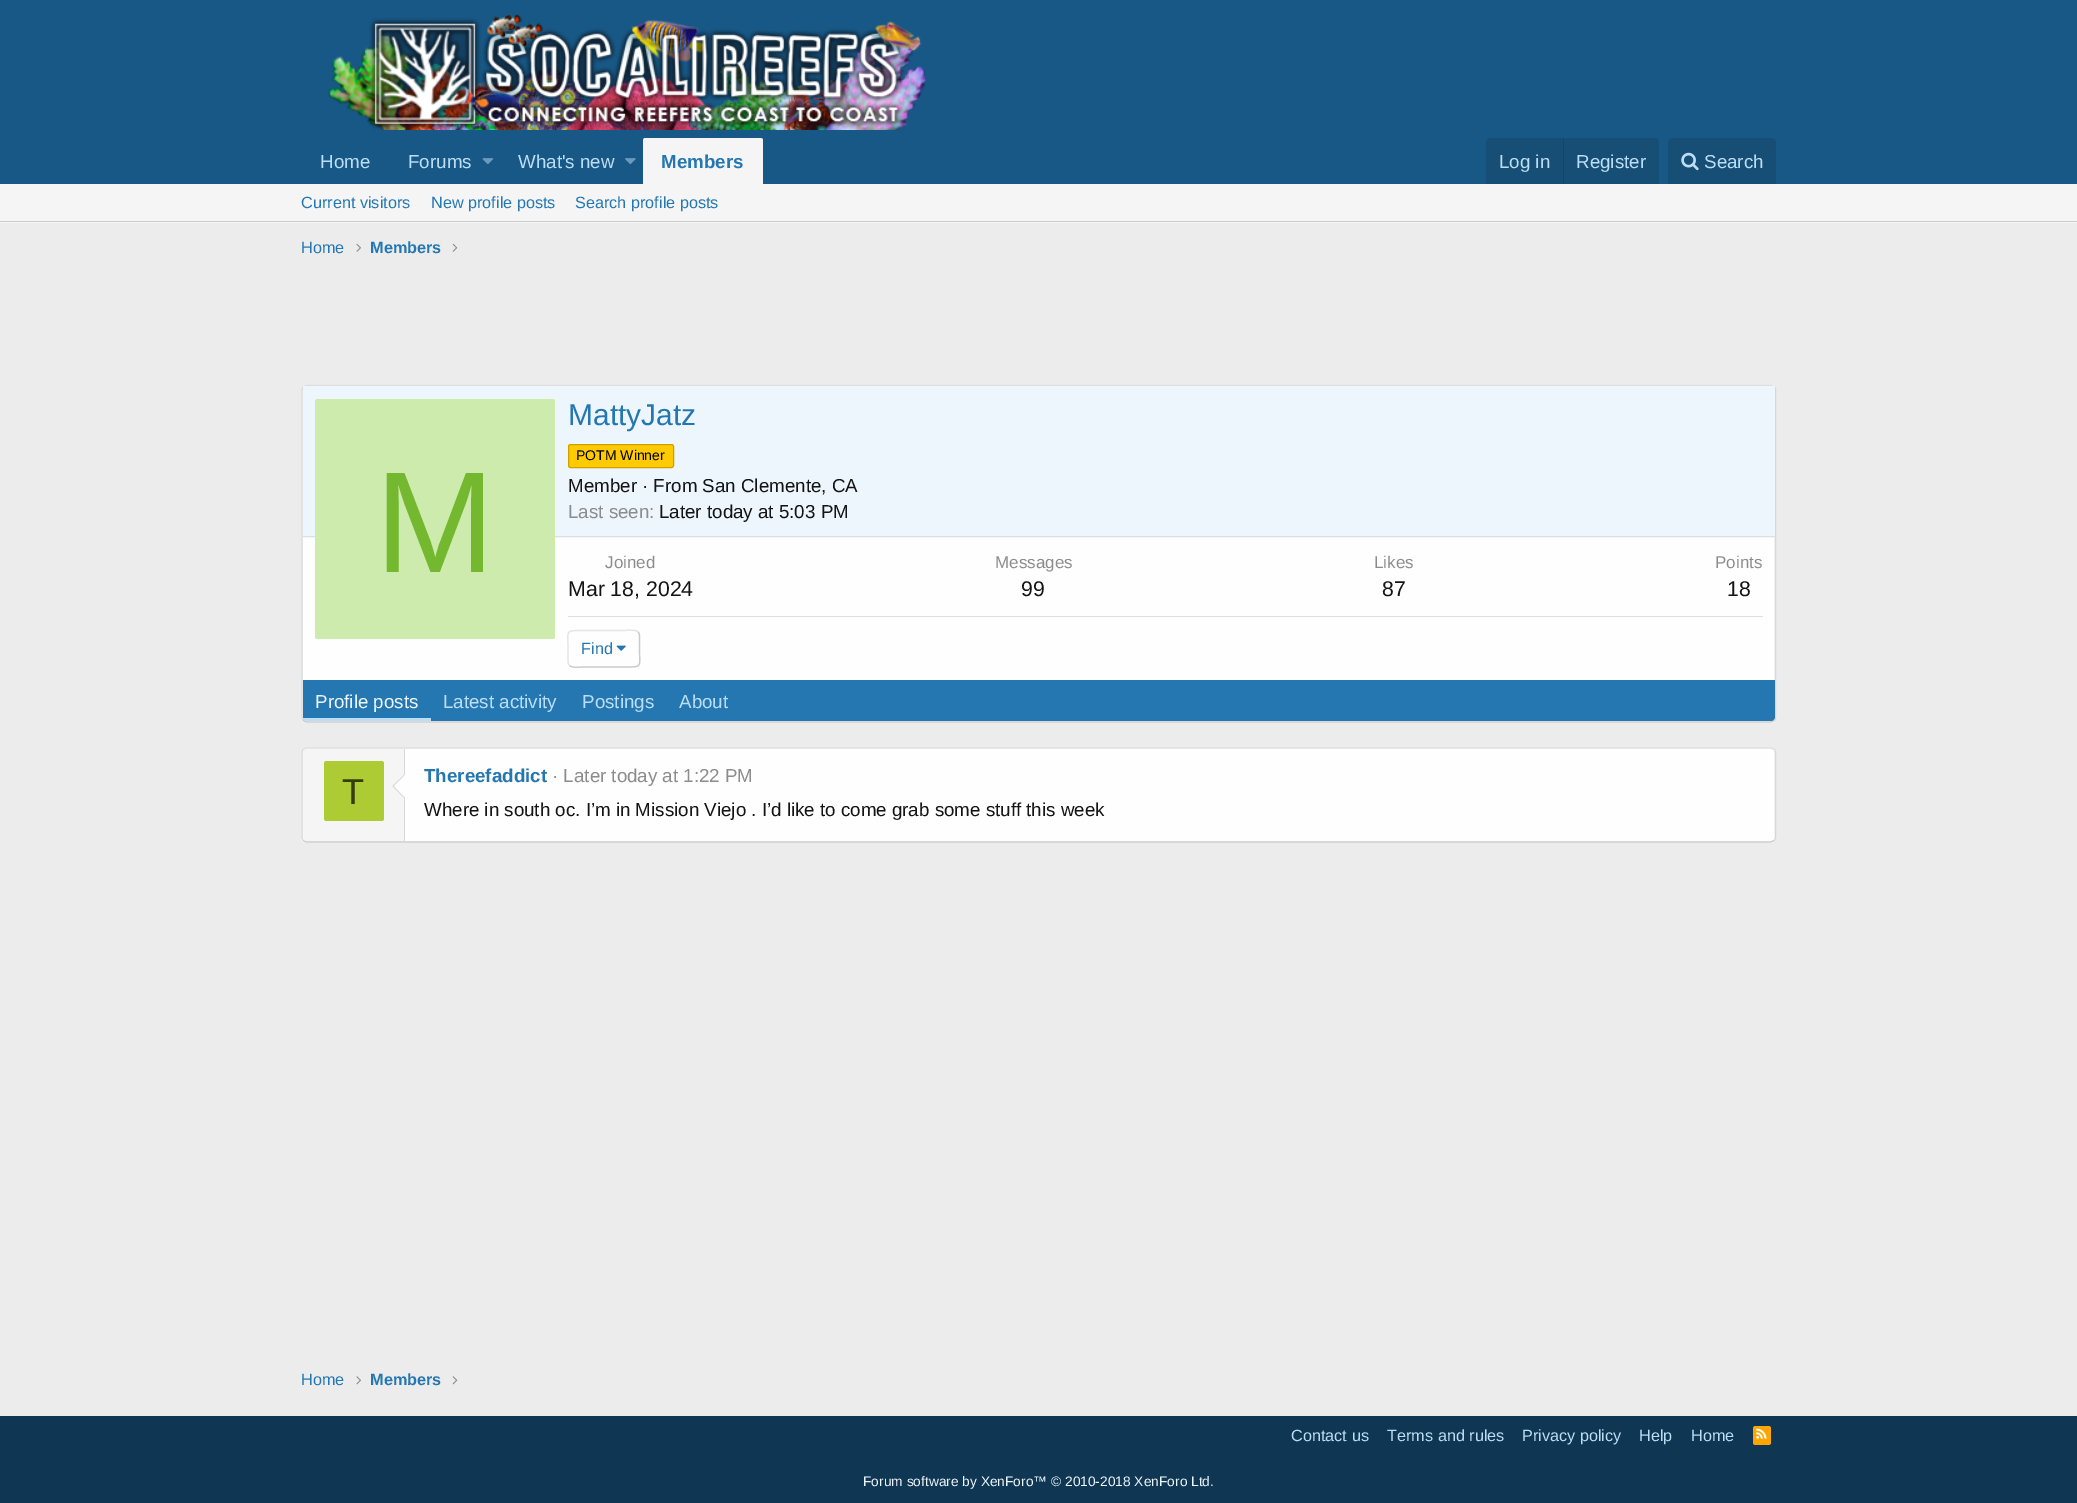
%!PS
<< /PageSize [2077 1503] >> setpagedevice
/rgb { 3 { 255 div 3 1 roll } repeat setrgbcolor } def
/font { [ exch dup neg 0 0 3 -1 roll 0 0 ] selectfont } def
/roundrect { 5 dict begin { /r /h /w /y /x } { exch def } forall
  x r add y moveto x w add y 2 copy h add r arct x w add y h add x 1 index r arct
  x y h add x y r arct x y 2 copy exch w add exch r arct closepath end } def
/picture { 5 dict begin { /h /w /y /x /name } { exch def } forall
  gsave x y translate w h scale
  w h 8 [w 0 0 h 0 0] name (r) file false 3 colorimage grestore end } def
0 1503 translate 1 -1 scale
4 setmiterlimit
236 236 236 rgb
0 0 2077 1503 rectfill
24 88 134 rgb
0 0 2077 184 rectfill
(img/1.rgb) 327 14 600 116 picture
(img/2.rgb) 482 158 12 6 picture
(img/3.rgb) 625 158 11 7 picture
245 245 245 rgb
645.5 138 moveto 760.5 138 lineto 762 138 763 139 763 140.5 curveto 763 184 lineto 643 184 lineto 643 140.5 lineto 643 139 644 138 645.5 138 curveto closepath fill
23 78 117 rgb
1491 138 moveto 1654 138 lineto 1657 138 1659 140 1659 143 curveto 1659 184 lineto 1486 184 lineto 1486 143 lineto 1486 140 1488 138 1491 138 curveto closepath fill
23 69 102 rgb
1563 138 1 46 rectfill
23 78 117 rgb
1673 138 moveto 1771 138 lineto 1774 138 1776 140 1776 143 curveto 1776 184 lineto 1668 184 lineto 1668 143 lineto 1668 140 1670 138 1673 138 curveto closepath fill
(img/4.rgb) 1681 152 18 19 picture
245 245 245 rgb
0 184 2077 39 rectfill
203 203 203 rgb
0 221 2077 1 rectfill
(img/5.rgb) 356 243 5 9 picture
(img/6.rgb) 452 243 6 9 picture
254 254 254 rgb
301 385 1475 338 5 roundrect fill
223 223 223 rgb
1.2 setlinewidth
303 387 moveto 306 385.5 lineto 1771 385.5 lineto 1774.5 387 lineto stroke
216 216 216 rgb
1774.5 387 moveto 1775 387.5 1775.5 389 1775.5 390 curveto 1775.5 717.5 lineto 1775.5 718.5 1775 720 1774.5 720.5 curveto stroke
203 203 203 rgb
1774.5 720.5 moveto 1771 722 lineto 306 722 lineto 303 720.5 lineto stroke
216 216 216 rgb
303 720.5 moveto 302.5 720 302 718.5 302 717.5 curveto 302 390 lineto 302 389 302.5 387.5 303 387 curveto stroke
237 246 253 rgb
303 386 1472 152 rectfill
223 223 223 rgb
303 536 1472 1 rectfill
204 235 173 rgb
315 399 240 240 2.5 roundrect fill
255 203 0 rgb
568.5 444.5 105 23 2 roundrect gsave fill grestore
204 162 0 rgb
1 setlinewidth
stroke
223 223 223 rgb
568 616 1195 1 rectfill
203 203 203 rgb
1.2 setlinewidth
638 632 moveto 640 634 639.5 637 639.5 639.5 curveto 639.5 649 lineto 639.5 667.5 643 667 624.5 667 curveto 583 667 lineto 582 667 572.5 668.5 569.5 665.5 curveto stroke
229 229 229 rgb
569.5 665.5 moveto 567.5 663.5 568 660.5 568 658 curveto 568 649 lineto 568 630 564.5 630.5 583 630.5 curveto 624.5 630.5 lineto 625.5 630.5 635 629 638 632 curveto stroke
(img/7.rgb) 616 645 10 6 picture
37 119 177 rgb
303 680 moveto 1775 680 lineto 1775 717 lineto 1775 719 1773 721 1771 721 curveto 307 721 lineto 305 721 303 719 303 717 curveto closepath fill
gsave
303 680 moveto 1775 680 lineto 1775 717 lineto 1775 719 1773 721 1771 721 curveto 307 721 lineto 305 721 303 719 303 717 curveto closepath clip newpath
188 222 245 rgb
303 718 128 3 rectfill
grestore
254 254 254 rgb
301 748 1475 95 5 roundrect fill
223 223 223 rgb
303 749.5 moveto 306 748 lineto 1771 748 lineto 1774.5 749.5 lineto stroke
216 216 216 rgb
1774.5 749.5 moveto 1775.5 752 lineto 1775.5 838 lineto 1774.5 840.5 lineto stroke
203 203 203 rgb
1774.5 840.5 moveto 1771 842 lineto 306 842 lineto 303 840.5 lineto stroke
216 216 216 rgb
303 840.5 moveto 302 838 lineto 302 752 lineto 303 749.5 lineto stroke
245 245 245 rgb
307 749 moveto 405 749 lineto 405 841 lineto 307 841 lineto 305 841 303 839 303 837 curveto 303 753 lineto 303 751 305 749 307 749 curveto closepath fill
216 216 216 rgb
404 749 1 92 rectfill
173 204 51 rgb
324 761 60 60 2.5 roundrect fill
216 216 216 rgb
405 774 moveto 405 799 lineto 392.5 786 lineto closepath fill
254 254 254 rgb
405 775 moveto 405 797.5 lineto 394 786 lineto closepath fill
(img/8.rgb) 356 1376 5 9 picture
(img/9.rgb) 452 1376 6 9 picture
15 54 82 rgb
0 1416 2077 87 rectfill
255 165 0 rgb
1753 1426 18 19 2.5 roundrect fill
(img/10.rgb) 1756 1428 11 11 picture
/LiberationSans-Regular 18.75 font
188 222 245 rgb
[
  [(Home) 320 168]
  [(Forums) 408 168]
  [(What's new) 518 168]
] { aload pop moveto show } forall
/LiberationSans-Bold 18.75 font
37 119 177 rgb
661 168 moveto (Members) show
/LiberationSans-Regular 18.75 font
188 222 245 rgb
[
  [(Log in) 1499 168]
  [(Register) 1576 168]
  [(Search) 1704 168]
] { aload pop moveto show } forall
/LiberationSans-Regular 16.25 font
37 119 177 rgb
[
  [(Current visitors) 301 208]
  [(New profile posts) 431 208]
  [(Search profile posts) 575 208]
  [(Home) 301 253]
] { aload pop moveto show } forall
/LiberationSans-Bold 16.25 font
370 253 moveto (Members) show
/LiberationSans-Regular 144 font
115 184 46 rgb
375 572 moveto (M) show
/LiberationSans-Regular 30 font
37 119 177 rgb
568 425 moveto (MattyJatz) show
/LiberationSans-Regular 14 font
0 0 0 rgb
576 460 moveto (POTM Winner) show
/LiberationSans-Regular 18.75 font
20 20 20 rgb
568 492 moveto (Member · From San Clemente, CA) show
140 140 140 rgb
568 518 moveto (Last seen:) show
20 20 20 rgb
659 518 moveto (Later today at 5:03 PM) show
/LiberationSans-Regular 17 font
140 140 140 rgb
605 568 moveto (Joined) show
/LiberationSans-Regular 21.25 font
20 20 20 rgb
568 596 moveto (Mar 18, 2024) show
/LiberationSans-Regular 17 font
140 140 140 rgb
995 568 moveto (Messages) show
/LiberationSans-Regular 21.25 font
20 20 20 rgb
1021 596 moveto (99) show
/LiberationSans-Regular 17 font
140 140 140 rgb
1374 568 moveto (Likes) show
/LiberationSans-Regular 21.25 font
20 20 20 rgb
1382 596 moveto (87) show
/LiberationSans-Regular 17 font
140 140 140 rgb
1715 568 moveto (Points) show
/LiberationSans-Regular 21.25 font
20 20 20 rgb
1727 596 moveto (18) show
/LiberationSans-Regular 16.25 font
37 119 177 rgb
581 654 moveto (Find) show
/LiberationSans-Regular 18.75 font
237 246 253 rgb
315 708 moveto (Profile posts) show
188 222 245 rgb
[
  [(Latest activity) 443 708]
  [(Postings) 582 708]
  [(About) 679 708]
] { aload pop moveto show } forall
/LiberationSans-Regular 36 font
52 61 15 rgb
342 804 moveto (T) show
/LiberationSans-Bold 18.75 font
37 119 177 rgb
424 782 moveto (Thereefaddict) show
/LiberationSans-Regular 18.75 font
140 140 140 rgb
552 782 moveto (· Later today at 1:22 PM) show
20 20 20 rgb
424 816 moveto (Where in south oc. I’m in Mission Viejo . I’d like to come grab some stuff this week) show
/LiberationSans-Regular 16.25 font
37 119 177 rgb
301 1385 moveto (Home) show
/LiberationSans-Bold 16.25 font
370 1385 moveto (Members) show
/LiberationSans-Regular 16.25 font
188 222 245 rgb
[
  [(Contact us) 1291 1441]
  [(Terms and rules) 1387 1441]
  [(Privacy policy) 1522 1441]
  [(Help) 1639 1441]
  [(Home) 1691 1441]
] { aload pop moveto show } forall
/LiberationSans-Regular 13.75 font
237 246 253 rgb
863 1486 moveto (Forum software by XenForo™ © 2010-2018 XenForo Ltd.) show
showpage
